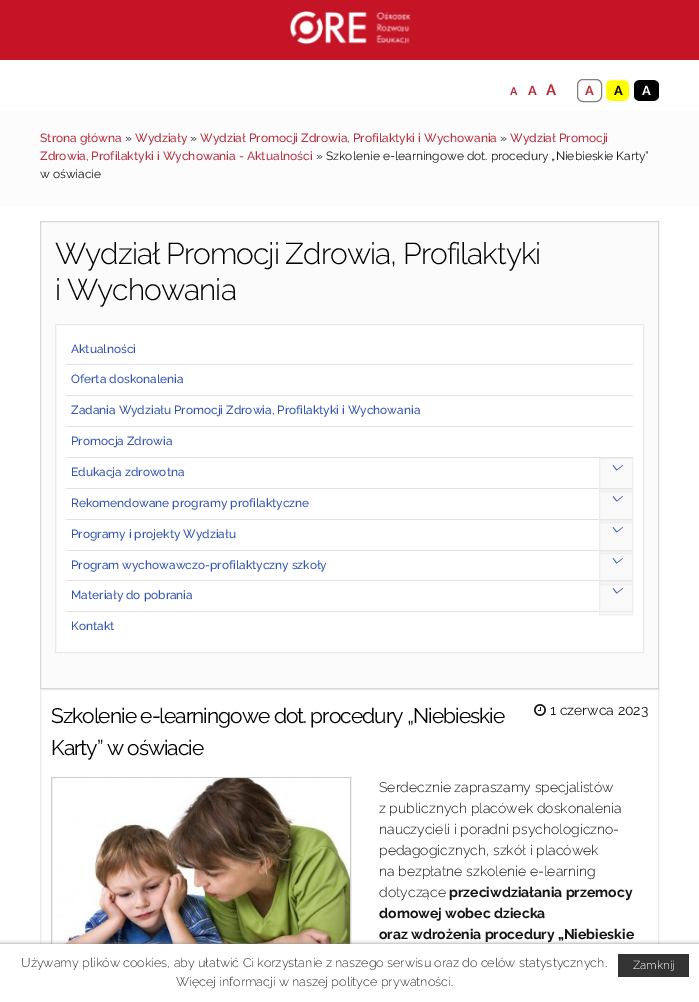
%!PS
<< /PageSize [699 1002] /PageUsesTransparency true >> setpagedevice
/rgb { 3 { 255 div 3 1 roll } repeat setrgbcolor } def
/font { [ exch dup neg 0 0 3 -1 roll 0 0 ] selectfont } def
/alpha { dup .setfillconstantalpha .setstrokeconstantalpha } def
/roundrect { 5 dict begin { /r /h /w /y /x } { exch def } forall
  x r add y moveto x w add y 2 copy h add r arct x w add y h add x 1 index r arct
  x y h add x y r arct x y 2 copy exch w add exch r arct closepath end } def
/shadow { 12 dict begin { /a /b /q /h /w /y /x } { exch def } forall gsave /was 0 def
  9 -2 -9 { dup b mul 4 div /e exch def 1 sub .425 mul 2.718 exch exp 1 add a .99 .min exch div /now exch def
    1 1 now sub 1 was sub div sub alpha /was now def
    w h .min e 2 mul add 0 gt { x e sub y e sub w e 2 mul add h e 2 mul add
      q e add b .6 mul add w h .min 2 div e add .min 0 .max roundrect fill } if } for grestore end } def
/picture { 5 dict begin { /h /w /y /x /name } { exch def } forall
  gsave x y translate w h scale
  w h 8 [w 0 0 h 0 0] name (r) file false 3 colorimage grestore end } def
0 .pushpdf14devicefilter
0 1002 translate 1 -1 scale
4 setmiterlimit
255 255 255 rgb
0 0 699 1002 rectfill
196 20 37 rgb
0 0 699 60 rectfill
(img/1.rgb) 289 11 122 34 picture
128 128 128 rgb
577.5 79.5 24 22 5.5 roundrect stroke
255 255 0 rgb
605.5 79.5 24 22 5.5 roundrect gsave fill grestore
255 255 255 rgb
stroke
0 0 0 rgb
640 80 moveto 653 80 lineto 656 80 659 82.5 659 85 curveto 659 96 lineto 659 98.5 656 101 653 101 curveto 640 101 lineto 637 101 634 98.5 634 96 curveto 634 85 lineto 634 82.5 637 80 640 80 curveto closepath fill
252 252 252 rgb
0 111 699 96 rectfill
251 251 251 rgb
40.5 221.5 moveto 658.5 221.5 lineto 658.5 688.5 lineto 40.5 688.5 lineto closepath gsave fill grestore
215 215 215 rgb
stroke
255 255 255 rgb
55.5 324.5 moveto 643.5 324.5 lineto 643.5 652.5 lineto 55.5 652.5 lineto closepath gsave fill grestore
234 234 234 rgb
stroke
[
  [66 364 567 1 226 226 226]
  [66 395 567 1 226 226 226]
  [66 426 567 1 226 226 226]
  [66 457 567 1 226 226 226]
  [66 488 567 1 226 226 226]
] { aload pop rgb rectfill } forall
0.4 alpha
239 239 239 rgb
599.5 458.5 moveto 632.5 458.5 lineto 632.5 491.5 lineto 599.5 491.5 lineto closepath fill
1 alpha
238 238 238 rgb
599.5 458.5 moveto 632.5 458.5 lineto 632.5 491.5 lineto 599.5 491.5 lineto closepath stroke
(img/2.rgb) 612 465 11 6 picture
226 226 226 rgb
66 519 567 1 rectfill
0.4 alpha
239 239 239 rgb
599.5 489.5 moveto 632.5 489.5 lineto 632.5 522.5 lineto 599.5 522.5 lineto closepath fill
1 alpha
238 238 238 rgb
599.5 489.5 moveto 632.5 489.5 lineto 632.5 522.5 lineto 599.5 522.5 lineto closepath stroke
(img/2.rgb) 612 496 11 6 picture
226 226 226 rgb
66 550 567 1 rectfill
0.4 alpha
239 239 239 rgb
599.5 520.5 moveto 632.5 520.5 lineto 632.5 553.5 lineto 599.5 553.5 lineto closepath fill
1 alpha
238 238 238 rgb
599.5 520.5 moveto 632.5 520.5 lineto 632.5 553.5 lineto 599.5 553.5 lineto closepath stroke
(img/2.rgb) 612 527 11 6 picture
226 226 226 rgb
66 580 567 1 rectfill
0.4 alpha
239 239 239 rgb
599.5 551.5 moveto 632.5 551.5 lineto 632.5 584.5 lineto 599.5 584.5 lineto closepath fill
1 alpha
238 238 238 rgb
599.5 551.5 moveto 632.5 551.5 lineto 632.5 584.5 lineto 599.5 584.5 lineto closepath stroke
(img/2.rgb) 612 558 11 6 picture
226 226 226 rgb
66 611 567 1 rectfill
0.4 alpha
239 239 239 rgb
599.5 581.5 moveto 632.5 581.5 lineto 632.5 614.5 lineto 599.5 614.5 lineto closepath fill
1 alpha
238 238 238 rgb
599.5 581.5 moveto 632.5 581.5 lineto 632.5 614.5 lineto 599.5 614.5 lineto closepath stroke
(img/2.rgb) 612 588 11 6 picture
234 234 234 rgb
40.5 689.5 618 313 rectstroke
(img/3.rgb) 534 704 12 12 picture
204 204 204 rgb
51.5 777.5 299 169 rectstroke
(img/4.rgb) 56 778 294 166 picture
136 136 136 rgb
0 944 699 58 0 2 1 shadow
255 255 255 rgb
0 944 699 58 rectfill
51 51 51 rgb
618 954 71 23 rectfill
/Raleway-Bold 11 font
181 48 62 rgb
510 95 moveto (A) show
/Raleway-Bold 13 font
528 95 moveto (A) show
/Raleway-Bold 15 font
546 95 moveto (A) show
/Raleway-Bold 13 font
585 95 moveto (A) show
0 0 0 rgb
614 95 moveto (A) show
255 255 255 rgb
642 95 moveto (A) show
/Raleway-Medium 12 font
181 48 62 rgb
40 142 moveto (Strona główna) show
/Raleway-Regular 12 font
21 21 21 rgb
125 142 moveto (») show
/Raleway-Medium 12 font
181 48 62 rgb
135 142 moveto (Wydziały) show
/Raleway-Regular 12 font
21 21 21 rgb
190 142 moveto (») show
/Raleway-Medium 12 font
181 48 62 rgb
200 142 moveto (Wydział Promocji Zdrowia, Profilaktyki i Wychowania) show
/Raleway-Regular 12 font
21 21 21 rgb
500 142 moveto (») show
/Raleway-Medium 12 font
181 48 62 rgb
510 142 moveto (Wydział Promocji) show
40 160 moveto (Zdrowia, Profilaktyki i Wychowania - Aktualności) show
/Raleway-Regular 12 font
21 21 21 rgb
316 160 moveto (» Szkolenie e-learningowe dot. procedury „Niebieskie Karty”) show
40 178 moveto (w oświacie) show
/Raleway-Light 30 font
0 0 0 rgb
55 264 moveto -1 0 (Wydział Promocji Zdrowia, Profilaktyki) ashow
55 300 moveto -1 0 (i Wychowania) ashow
/Raleway-Medium 11.9 font
51 83 177 rgb
[
  [(Aktualności) 71 353]
  [(Oferta doskonalenia) 71 383]
  [(Zadania Wydziału Promocji Zdrowia, Profilaktyki i Wychowania) 71 414]
  [(Promocja Zdrowia) 71 445]
  [(Edukacja zdrowotna) 71 476]
  [(Rekomendowane programy profilaktyczne) 71 507]
  [(Programy i projekty Wydziału) 71 538]
  [(Program wychowawczo-profilaktyczny szkoły) 71 569]
  [(Materiały do pobrania) 71 599]
  [(Kontakt) 71 630]
] { aload pop moveto show } forall
/Raleway-Regular 21 font
0 0 0 rgb
51 723 moveto -1 0 (Szkolenie e-learningowe dot. procedury „Niebieskie) ashow
51 755 moveto -1 0 (Karty” w oświacie) ashow
/Raleway-Regular 14 font
21 21 21 rgb
550 715 moveto (1 czerwca 2023) show
/Raleway-Light 14 font
[
  [(Serdecznie zapraszamy specjalistów) 379 792]
  [(z publicznych placówek doskonalenia) 379 813]
  [(nauczycieli i poradni psychologiczno-) 379 834]
  [(pedagogicznych, szkół i placówek) 379 855]
  [(na bezpłatne szkolenie e-learning) 379 876]
  [(dotyczące) 379 897]
] { aload pop moveto show } forall
/Raleway-Bold 14 font
[
  [(przeciwdziałania przemocy) 449 897]
  [(domowej wobec dziecka) 379 918]
  [(oraz wdrożenia procedury „Niebieskie) 379 939]
] { aload pop moveto show } forall
/Raleway-Light 12.6 font
51 51 51 rgb
21 967 moveto (Używamy plików cookies, aby ułatwić Ci korzystanie z naszego serwisu oraz do celów statystycznych.) show
/Raleway-Light 11.5 font
255 255 255 rgb
633 969 moveto (Zamknij) show
/Raleway-Light 12.6 font
51 51 51 rgb
176 986 moveto (Więcej informacji w naszej polityce prywatności.) show
.poppdf14devicefilter showpage
